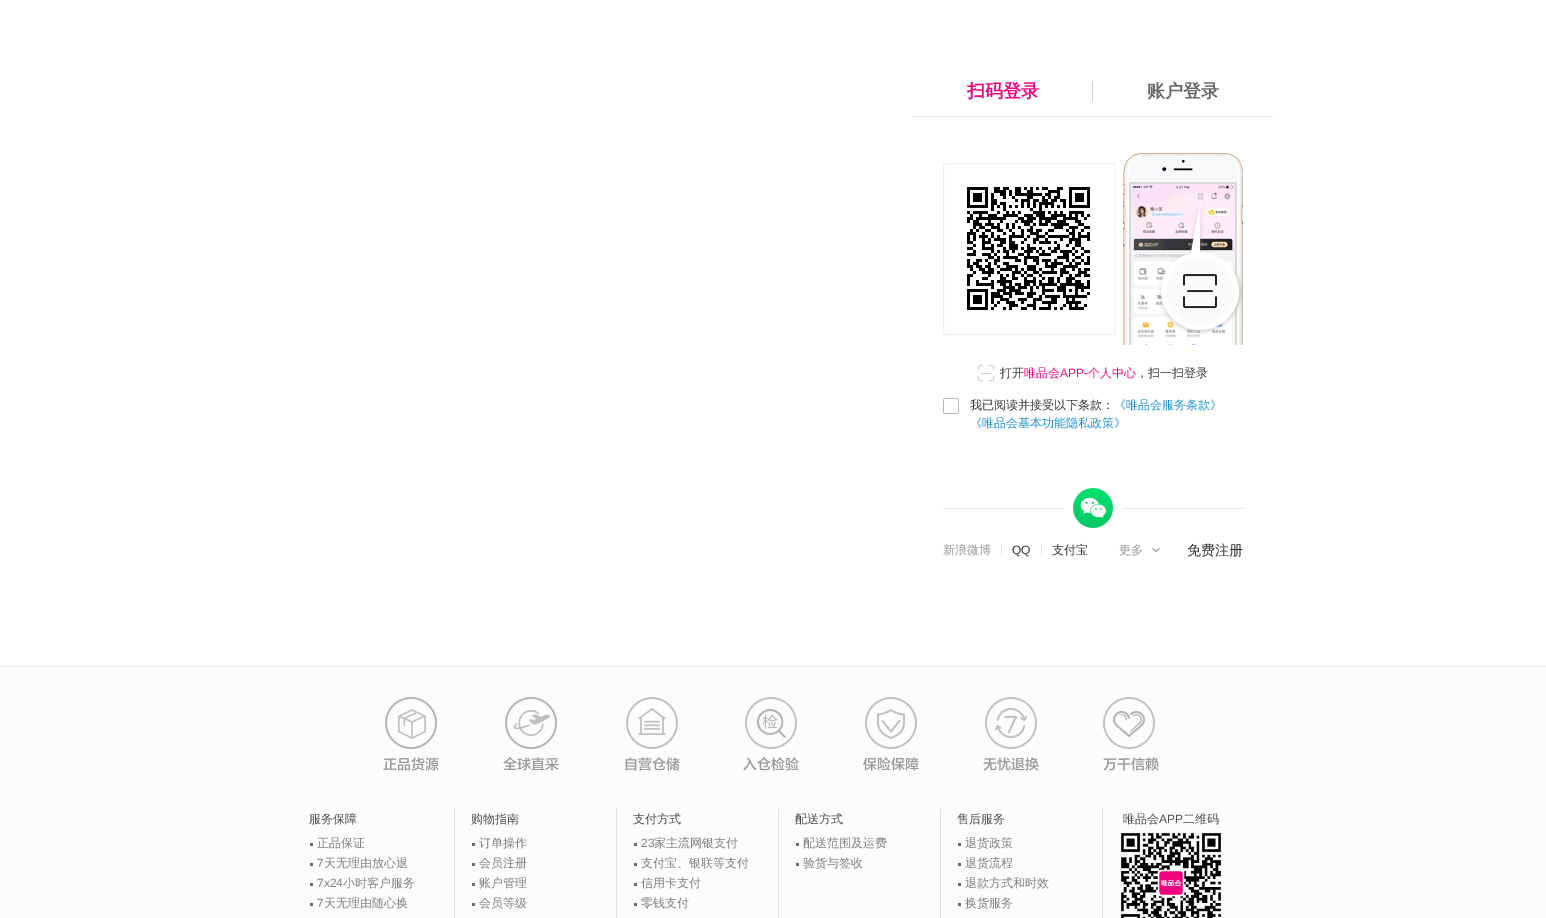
%!PS
<< /PageSize [1546 918] >> setpagedevice
/rgb { 3 { 255 div 3 1 roll } repeat setrgbcolor } def
/font { [ exch dup neg 0 0 3 -1 roll 0 0 ] selectfont } def
/picture { 5 dict begin { /h /w /y /x /name } { exch def } forall
  gsave x y translate w h scale
  w h 8 [w 0 0 h 0 0] name (r) file false 3 colorimage grestore end } def
0 918 translate 1 -1 scale
4 setmiterlimit
255 255 255 rgb
0 0 1546 918 rectfill
224 224 224 rgb
913 116 360 1 rectfill
204 204 204 rgb
1092 81 1 20 rectfill
240 240 240 rgb
943.5 163.5 171 171 rectstroke
(img/1.rgb) 967 187 123 123 picture
(img/2.rgb) 1123 153 120 192 picture
(img/3.rgb) 978 365 16 16 picture
(img/4.rgb) 943 398 16 16 picture
224 224 224 rgb
943 508 300 1 rectfill
255 255 255 rgb
1063 508 60 1 rectfill
(img/5.rgb) 1073 488 40 40 picture
224 224 224 rgb
1001 545 1 10 rectfill
1041 545 1 10 rectfill
(img/6.rgb) 1152 548 8 4 picture
252 252 252 rgb
0 667 1546 251 rectfill
235 235 235 rgb
0 666 1546 1 rectfill
(img/7.rgb) 383 697 56 74 picture
(img/8.rgb) 503 697 56 74 picture
(img/9.rgb) 625 697 55 74 picture
(img/10.rgb) 743 697 56 74 picture
(img/11.rgb) 863 697 56 74 picture
(img/12.rgb) 983 697 56 74 picture
(img/13.rgb) 1103 697 56 74 picture
[
  [454 809 1 109 224 224 224]
  [310 843 3 3 106 107 109]
  [310 863 3 3 106 107 109]
  [310 883 3 3 106 107 109]
  [310 903 3 3 106 107 109]
  [616 809 1 109 224 224 224]
  [472 843 3 3 106 107 109]
  [472 863 3 3 106 107 109]
  [472 883 3 3 106 107 109]
  [472 903 3 3 106 107 109]
  [778 809 1 109 224 224 224]
  [634 843 3 3 106 107 109]
  [634 863 3 3 106 107 109]
  [634 883 3 3 106 107 109]
  [634 903 3 3 106 107 109]
  [940 809 1 109 224 224 224]
  [796 843 3 3 106 107 109]
  [796 863 3 3 106 107 109]
  [1102 809 1 109 224 224 224]
  [958 843 3 3 106 107 109]
  [958 863 3 3 106 107 109]
  [958 883 3 3 106 107 109]
  [958 903 3 3 106 107 109]
] { aload pop rgb rectfill } forall
(img/14.rgb) 1121 833 100 85 picture
/WenQuanYiZenHei-Bold 18 font
241 1 128 rgb
967 97 moveto (扫码登录) show
102 102 102 rgb
1147 97 moveto (账户登录) show
/WenQuanYiZenHei-Medium 12 font
51 51 51 rgb
1000 377 moveto (打开) show
241 1 128 rgb
1024 377 moveto (唯品会) show
/LiberationSans-Regular 12 font
1060 377 moveto (APP-) show
/WenQuanYiZenHei-Medium 12 font
1088 377 moveto (个人中心) show
51 51 51 rgb
1136 377 moveto (，扫一扫登录) show
970 409 moveto (我已阅读并接受以下条款：) show
29 148 209 rgb
1114 409 moveto (《唯品会服务条款》) show
970 427 moveto (《唯品会基本功能隐私政策》) show
153 153 153 rgb
943 554 moveto (新浪微博) show
/LiberationSans-Regular 12 font
51 51 51 rgb
1012 554 moveto (QQ) show
/WenQuanYiZenHei-Medium 12 font
1052 554 moveto (支付宝) show
153 153 153 rgb
1119 554 moveto (更多) show
/WenQuanYiZenHei-Medium 14 font
51 51 51 rgb
1187 555 moveto (免费注册) show
/WenQuanYiZenHei-Medium 12 font
77 77 77 rgb
309 823 moveto (服务保障) show
128 128 128 rgb
317 847 moveto (正品保证) show
/LiberationSans-Regular 12 font
317 867 moveto (7) show
/WenQuanYiZenHei-Medium 12 font
324 867 moveto (天无理由放心退) show
/LiberationSans-Regular 12 font
317 887 moveto (7x24) show
/WenQuanYiZenHei-Medium 12 font
343 887 moveto (小时客户服务) show
/LiberationSans-Regular 12 font
317 907 moveto (7) show
/WenQuanYiZenHei-Medium 12 font
324 907 moveto (天无理由随心换) show
77 77 77 rgb
471 823 moveto (购物指南) show
128 128 128 rgb
[
  [(订单操作) 479 847]
  [(会员注册) 479 867]
  [(账户管理) 479 887]
  [(会员等级) 479 907]
] { aload pop moveto show } forall
77 77 77 rgb
633 823 moveto (支付方式) show
/LiberationSans-Regular 12 font
128 128 128 rgb
641 847 moveto (23) show
/WenQuanYiZenHei-Medium 12 font
[
  [(家主流网银支付) 654 847]
  [(支付宝、银联等支付) 641 867]
  [(信用卡支付) 641 887]
  [(零钱支付) 641 907]
] { aload pop moveto show } forall
77 77 77 rgb
795 823 moveto (配送方式) show
128 128 128 rgb
803 847 moveto (配送范围及运费) show
803 867 moveto (验货与签收) show
77 77 77 rgb
957 823 moveto (售后服务) show
128 128 128 rgb
[
  [(退货政策) 965 847]
  [(退货流程) 965 867]
  [(退款方式和时效) 965 887]
  [(换货服务) 965 907]
] { aload pop moveto show } forall
77 77 77 rgb
1123 823 moveto (唯品会) show
/LiberationSans-Regular 12 font
1159 823 moveto (APP) show
/WenQuanYiZenHei-Medium 12 font
1183 823 moveto (二维码) show
showpage
